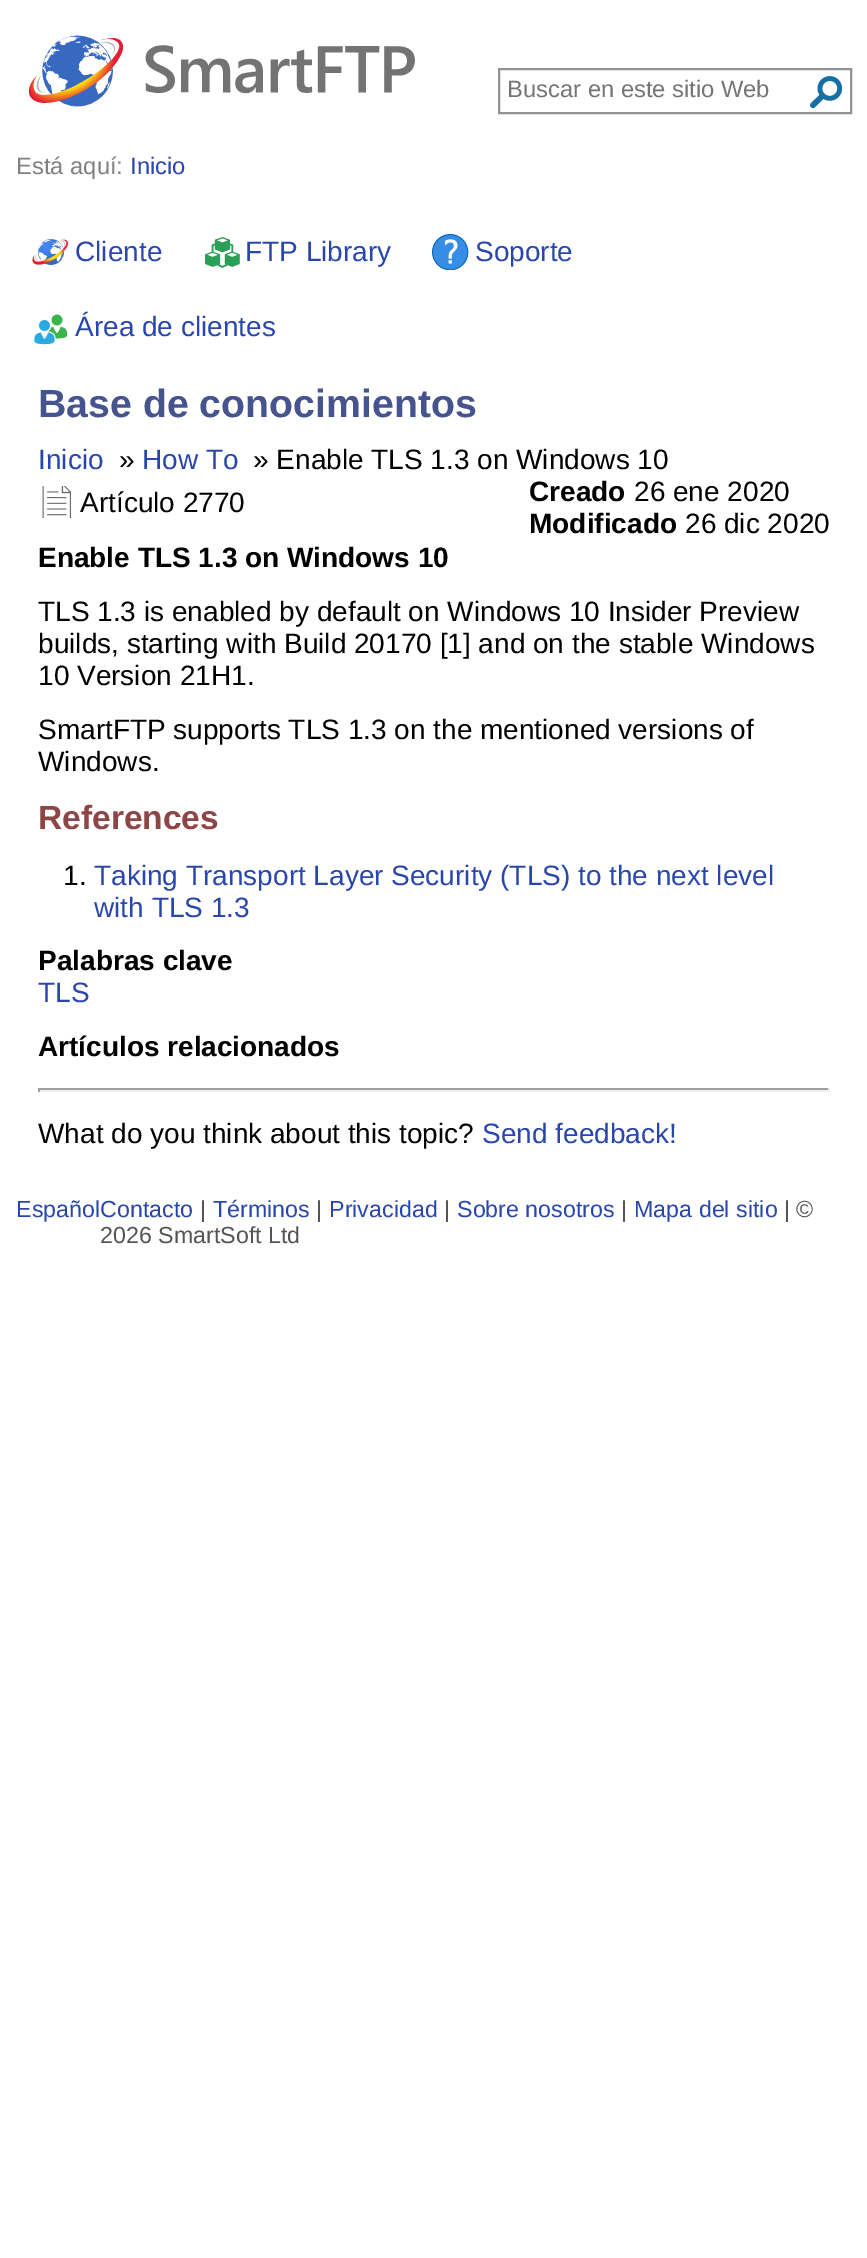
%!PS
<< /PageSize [867 2258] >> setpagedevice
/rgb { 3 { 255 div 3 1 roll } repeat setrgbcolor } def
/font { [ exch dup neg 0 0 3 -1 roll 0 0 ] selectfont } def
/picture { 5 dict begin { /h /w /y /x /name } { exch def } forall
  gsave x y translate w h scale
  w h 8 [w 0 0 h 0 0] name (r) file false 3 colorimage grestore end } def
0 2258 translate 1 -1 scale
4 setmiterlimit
255 255 255 rgb
0 0 867 2258 rectfill
(img/1.rgb) 28 35 387 72 picture
147 146 146 rgb
2 setlinewidth
499 69 352 44 rectstroke
(img/2.rgb) 810 76 32 32 picture
(img/3.rgb) 32 239 36 26 picture
(img/4.rgb) 205 237 35 31 picture
(img/5.rgb) 432 234 37 36 picture
(img/6.rgb) 34 314 34 31 picture
(img/7.rgb) 42 486 29 32 picture
[
  [38 1088 792 2 159 159 159]
  [828 1088 2 4 238 238 238]
  [38 1090 792 2 238 238 238]
  [38 1088 2 4 159 159 159]
] { aload pop rgb rectfill } forall
/LiberationSans-Regular 23.75 font
117 117 117 rgb
507 97 moveto (Buscar en este sitio Web) show
128 128 128 rgb
16 174 moveto (Está aquí:) show
41 70 173 rgb
130 174 moveto (Inicio) show
/LiberationSans-Regular 28 font
[
  [(Cliente) 75 261]
  [(FTP Library) 245 261]
  [(Soporte) 475 261]
  [(Área de clientes) 75 336]
] { aload pop moveto show } forall
/LiberationSans-Bold 39.25 font
69 84 142 rgb
38 417 moveto (Base de conocimientos) show
/LiberationSans-Regular 28 font
41 70 173 rgb
38 469 moveto (Inicio) show
0 0 0 rgb
119 469 moveto (») show
41 70 173 rgb
142 469 moveto (How To) show
0 0 0 rgb
253 469 moveto (» Enable TLS 1.3 on Windows 10) show
80 512 moveto (Artículo 2770) show
/LiberationSans-Bold 28 font
529 501 moveto (Creado) show
/LiberationSans-Regular 28 font
634 501 moveto (26 ene 2020) show
/LiberationSans-Bold 28 font
529 533 moveto (Modificado) show
/LiberationSans-Regular 28 font
685 533 moveto (26 dic 2020) show
/LiberationSans-Bold 28 font
38 567 moveto (Enable TLS 1.3 on Windows 10) show
/LiberationSans-Regular 28 font
[
  [(TLS 1.3 is enabled by default on Windows 10 Insider Preview) 38 621]
  [(builds, starting with Build 20170 [1] and on the stable Windows) 38 653]
  [(10 Version 21H1.) 38 685]
  [(SmartFTP supports TLS 1.3 on the mentioned versions of) 38 739]
  [(Windows.) 38 771]
] { aload pop moveto show } forall
/LiberationSans-Bold 33.5 font
142 69 69 rgb
38 829 moveto (References) show
/LiberationSans-Regular 28 font
0 0 0 rgb
63 885 moveto (1.) show
41 70 173 rgb
94 885 moveto (Taking Transport Layer Security \(TLS\) to the next level) show
94 917 moveto (with TLS 1.3) show
/LiberationSans-Bold 28 font
0 0 0 rgb
38 970 moveto (Palabras clave) show
/LiberationSans-Regular 28 font
41 70 173 rgb
38 1002 moveto (TLS) show
/LiberationSans-Bold 28 font
0 0 0 rgb
38 1056 moveto (Artículos relacionados) show
/LiberationSans-Regular 28 font
38 1143 moveto (What do you think about this topic?) show
41 70 173 rgb
482 1143 moveto (Send feedback!) show
/LiberationSans-Regular 23.25 font
85 85 85 rgb
200 1217 moveto (|) show
41 70 173 rgb
213 1217 moveto (Términos) show
85 85 85 rgb
316 1217 moveto (|) show
41 70 173 rgb
329 1217 moveto (Privacidad) show
85 85 85 rgb
444 1217 moveto (|) show
41 70 173 rgb
457 1217 moveto (Sobre nosotros) show
85 85 85 rgb
621 1217 moveto (|) show
41 70 173 rgb
634 1217 moveto (Mapa del sitio) show
85 85 85 rgb
784 1217 moveto (| ©) show
100 1243 moveto (2026 SmartSoft Ltd) show
41 70 173 rgb
16 1217 moveto (EspañolContacto) show
showpage
